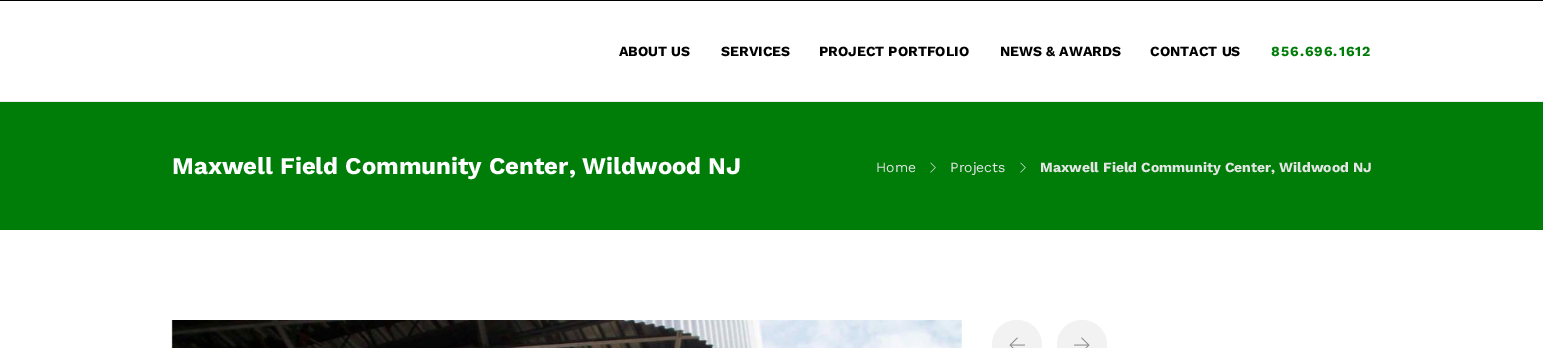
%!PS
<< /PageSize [1543 348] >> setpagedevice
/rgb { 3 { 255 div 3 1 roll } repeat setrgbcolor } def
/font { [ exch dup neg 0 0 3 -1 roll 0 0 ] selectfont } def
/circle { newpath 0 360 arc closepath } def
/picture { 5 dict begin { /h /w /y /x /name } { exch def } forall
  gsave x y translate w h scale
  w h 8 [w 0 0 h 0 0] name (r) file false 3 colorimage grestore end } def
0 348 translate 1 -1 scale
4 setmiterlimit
255 255 255 rgb
0 0 1543 348 rectfill
[
  [0 0 1543 1 0 0 0]
  [0 101 1543 1 235 235 235]
  [0 102 1543 128 0 125 8]
] { aload pop rgb rectfill } forall
(img/1.rgb) 930 162 6 11 picture
(img/1.rgb) 1020 162 6 11 picture
(img/2.rgb) 171 320 791 28 picture
242 242 242 rgb
1017 345 25 circle fill
(img/3.rgb) 1009 337 16 11 picture
1082 345 25 circle fill
(img/4.rgb) 1074 337 16 11 picture
/WorkSans-Bold 14 font
0 0 0 rgb
[
  [(ABOUT US) 619 56]
  [(SERVICES) 721 56]
  [(PROJECT PORTFOLIO) 819 56]
  [(NEWS & AWARDS) 1000 56]
  [(CONTACT US) 1150 56]
] { aload pop moveto show } forall
0 125 8 rgb
1271 56 moveto 1 0 (856.696.1612) ashow
/WorkSans-Bold 24 font
255 255 255 rgb
172 174 moveto (Maxwell Field Community Center, Wildwood NJ) show
/WorkSans-Regular 14 font
229 229 229 rgb
876 172 moveto (Home) show
950 172 moveto (Projects) show
/WorkSans-Bold 14 font
1040 172 moveto (Maxwell Field Community Center, Wildwood NJ) show
showpage
